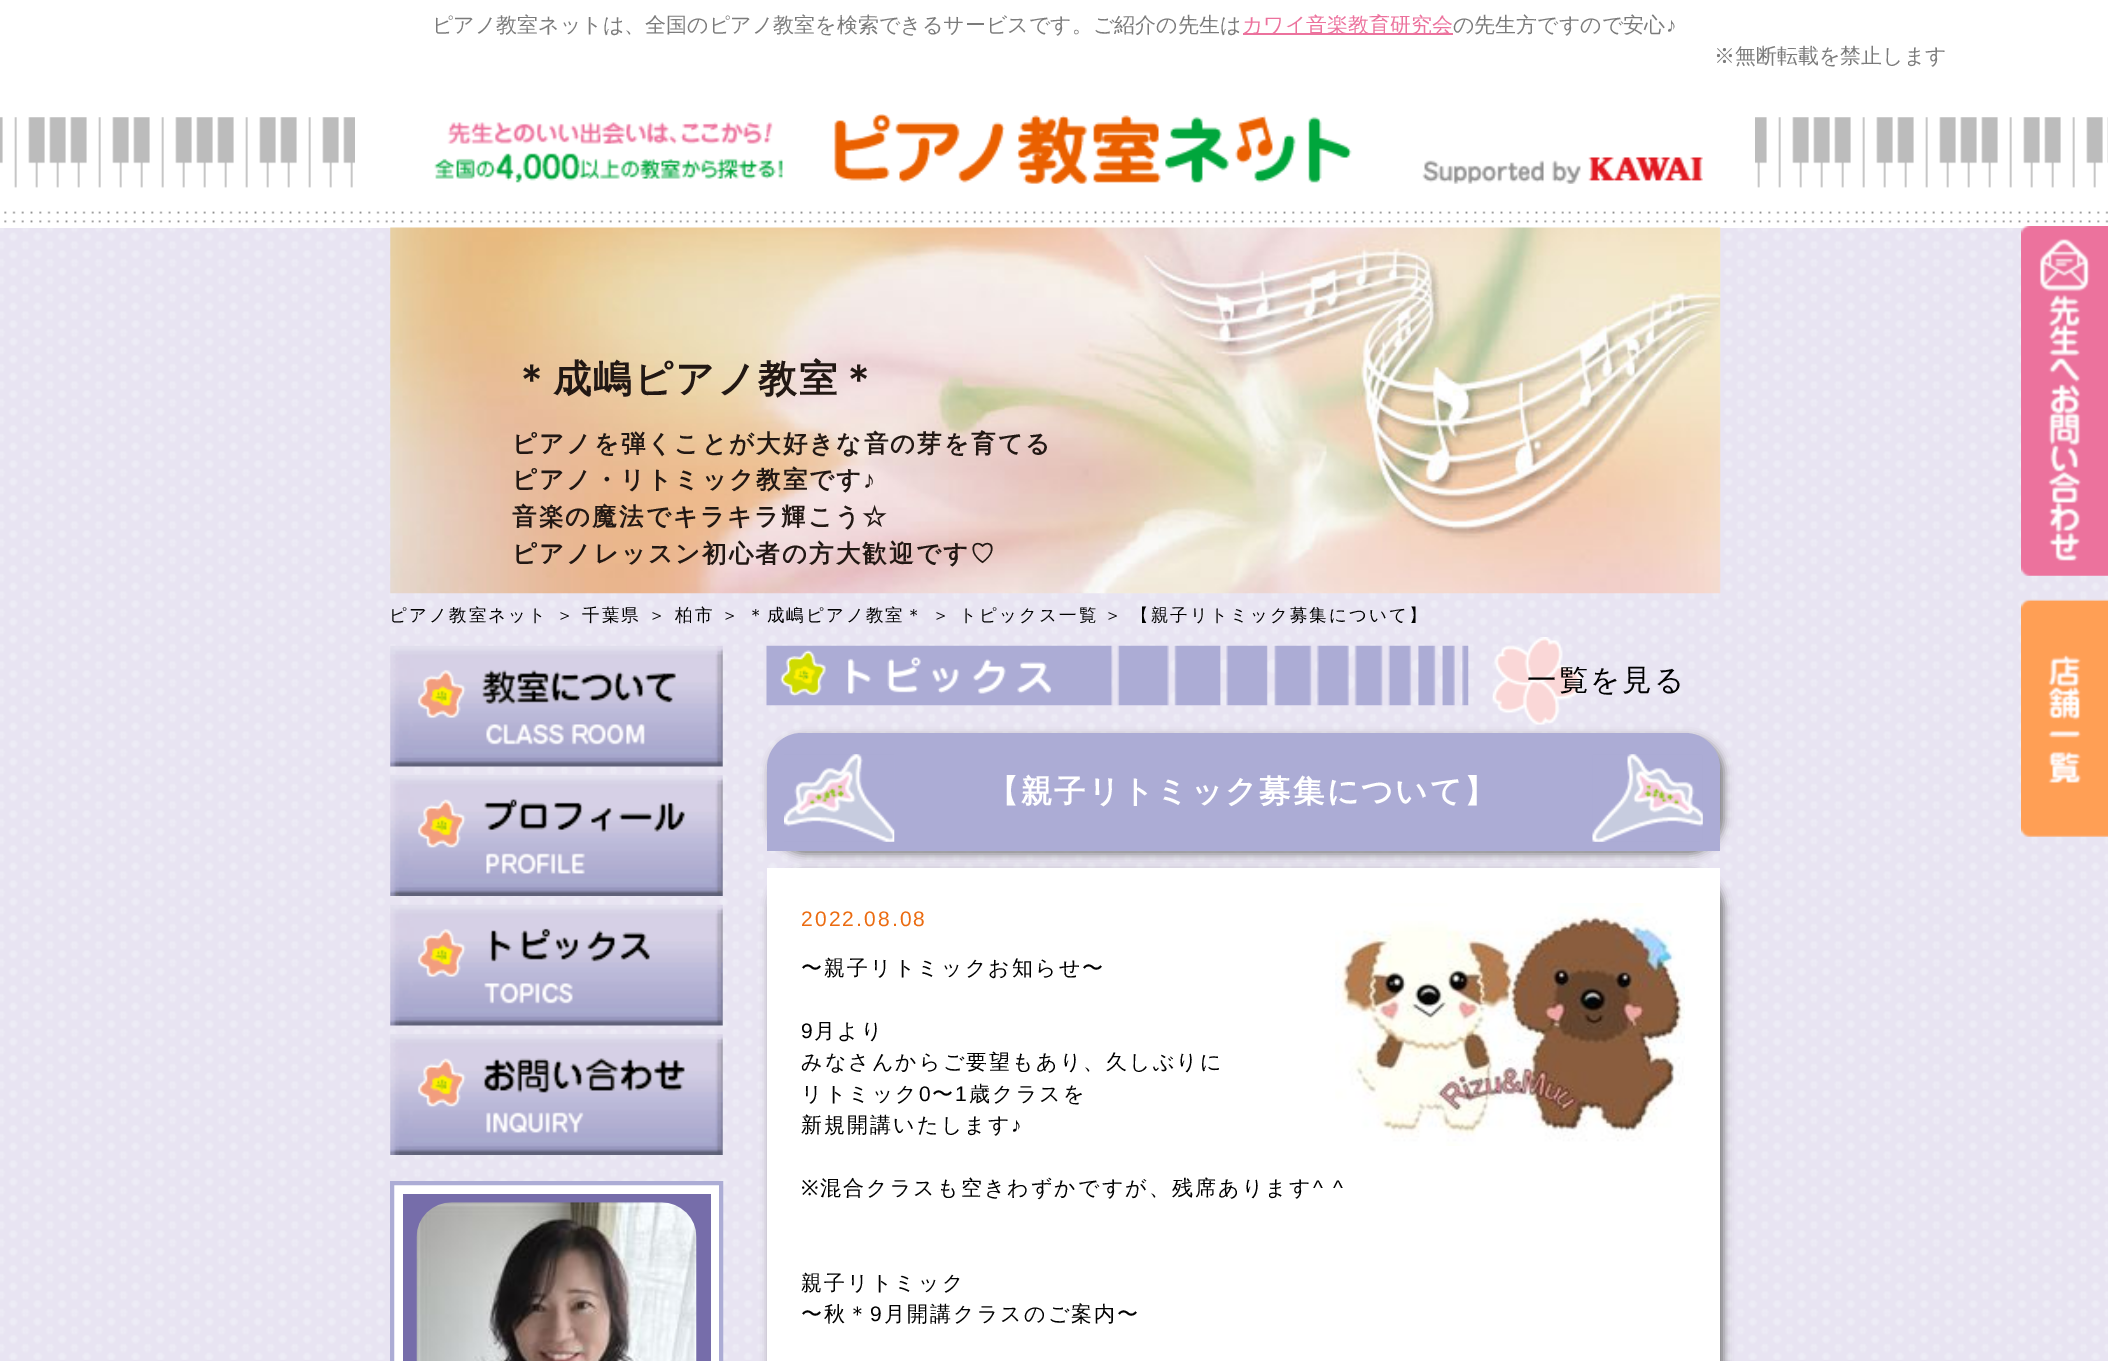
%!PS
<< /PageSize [2108 1361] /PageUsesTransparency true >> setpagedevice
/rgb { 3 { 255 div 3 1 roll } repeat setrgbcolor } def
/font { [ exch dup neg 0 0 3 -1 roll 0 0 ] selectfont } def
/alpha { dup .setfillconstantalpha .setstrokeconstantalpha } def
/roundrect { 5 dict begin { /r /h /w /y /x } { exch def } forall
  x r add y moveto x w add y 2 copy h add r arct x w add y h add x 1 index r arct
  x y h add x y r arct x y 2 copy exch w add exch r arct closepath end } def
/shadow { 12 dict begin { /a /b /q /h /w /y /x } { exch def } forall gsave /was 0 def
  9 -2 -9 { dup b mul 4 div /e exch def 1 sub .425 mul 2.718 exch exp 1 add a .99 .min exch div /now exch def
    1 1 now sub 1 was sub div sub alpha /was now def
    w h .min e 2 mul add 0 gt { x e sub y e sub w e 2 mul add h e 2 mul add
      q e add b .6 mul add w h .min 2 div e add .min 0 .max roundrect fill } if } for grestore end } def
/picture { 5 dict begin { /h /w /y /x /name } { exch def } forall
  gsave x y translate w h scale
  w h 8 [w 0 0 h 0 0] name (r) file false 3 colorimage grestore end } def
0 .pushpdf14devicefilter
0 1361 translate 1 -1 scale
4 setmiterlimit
232 228 242 rgb
0 0 2108 1361 rectfill
(img/1.rgb) 0 228 2108 1132 picture
255 255 255 rgb
0 0 2108 228 rectfill
(img/2.rgb) 0 117 2108 106 picture
236 114 157 rgb
1243 33 210 2 rectfill
255 255 255 rgb
355 117 1400 71 rectfill
(img/3.rgb) 434 114 918 70 picture
(img/4.rgb) 1422 157 281 27 picture
(img/5.rgb) 390 227 1331 367 picture
(img/6.rgb) 390 645 333 122 picture
(img/7.rgb) 390 775 333 121 picture
(img/8.rgb) 390 904 333 122 picture
(img/9.rgb) 390 1034 333 121 picture
392 1183 moveto 721 1183 lineto 721 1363 lineto 392 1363 lineto closepath gsave fill grestore
172 172 213 rgb
4 setlinewidth
stroke
118 109 170 rgb
403 1194 308 167 rectfill
(img/10.rgb) 416 1202 281 159 picture
(img/11.rgb) 766 645 703 61 picture
(img/12.rgb) 1492 637 90 88 picture
128 128 128 rgb
770 872 954 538 35 4.5 1 shadow
255 255 255 rgb
767 868 953 493 rectfill
128 128 128 rgb
770 737 954 117 35 4.5 1 shadow
172 172 213 rgb
802 733 moveto 1685 733 lineto 1704.5 733 1720 748.5 1720 768 curveto 1720 851 lineto 767 851 lineto 767 768 lineto 767 748.5 782.5 733 802 733 curveto closepath fill
(img/13.rgb) 784 754 111 88 picture
(img/14.rgb) 1592 754 111 88 picture
(img/15.rgb) 1335 903 350 243 picture
(img/16.rgb) 2021 226 87 350 picture
(img/17.rgb) 2021 599 87 238 picture
/WenQuanYiZenHei-Medium 21 font
123 123 123 rgb
432 32 moveto (ピアノ教室ネットは、全国のピアノ教室を検索できるサービスです。ご紹介の先生は) show
236 114 157 rgb
1242 32 moveto (カワイ音楽教育研究会) show
123 123 123 rgb
1453 32 moveto (の先生方ですので安心) show
/LiberationSans-Regular 21 font
1666 32 moveto (♪) show
/WenQuanYiZenHei-Medium 21 font
1714 63 moveto (※無断転載を禁止します) show
/WenQuanYiZenHei-Bold 38.5 font
34 24 20 rgb
512 392 moveto 2.1 0 (＊成嶋ピアノ教室＊) ashow
/WenQuanYiZenHei-Bold 24.5 font
512 452 moveto 2.1 0 (ピアノを弾くことが大好きな音の芽を育てる) ashow
512 488 moveto 2.1 0 (ピアノ・リトミック教室です) ashow
/LiberationSans-Bold 24.5 font
863 488 moveto 2.1 0 (♪) ashow
/WenQuanYiZenHei-Bold 24.5 font
512 525 moveto 2.1 0 (音楽の魔法でキラキラ輝こう☆) ashow
512 562 moveto 2.1 0 (ピアノレッスン初心者の方大歓迎です♡) ashow
/WenQuanYiZenHei-Medium 17.5 font
0 0 0 rgb
389 621 moveto 2.1 0 (ピアノ教室ネット) ashow
556 621 moveto 2.1 0 (＞) ashow
582 621 moveto 2.1 0 (千葉県) ashow
648 621 moveto 2.1 0 (＞) ashow
675 621 moveto 2.1 0 (柏市) ashow
721 621 moveto 2.1 0 (＞) ashow
747 621 moveto 2.1 0 (＊成嶋ピアノ教室＊) ashow
932 621 moveto 2.1 0 (＞) ashow
959 621 moveto 2.1 0 (トピックス一覧) ashow
1104 621 moveto 2.1 0 (＞ 【親子リトミック募集について】) ashow
/WenQuanYiZenHei-Medium 29.5 font
1527 690 moveto 2.1 0 (一覧を見る) ashow
/WenQuanYiZenHei-Bold 31.5 font
255 255 255 rgb
987 802 moveto 2.1 0 (【親子リトミック募集について】) ashow
/LiberationSans-Regular 21 font
235 107 16 rgb
801 926 moveto 2.1 0 (2022.08.08) ashow
/WenQuanYiZenHei-Medium 21 font
0 0 0 rgb
801 975 moveto 2.1 0 (〜親子リトミックお知らせ〜) ashow
/LiberationSans-Regular 21 font
801 1038 moveto 2.1 0 (9) ashow
/WenQuanYiZenHei-Medium 21 font
814 1038 moveto 2.1 0 (月より) ashow
801 1069 moveto 2.1 0 (みなさんからご要望もあり、久しぶりに) ashow
801 1101 moveto 2.1 0 (リトミック) ashow
/LiberationSans-Regular 21 font
919 1101 moveto 2.1 0 (0) ashow
/WenQuanYiZenHei-Medium 21 font
932 1101 moveto 2.1 0 (〜) ashow
/LiberationSans-Regular 21 font
955 1101 moveto 2.1 0 (1) ashow
/WenQuanYiZenHei-Medium 21 font
969 1101 moveto 2.1 0 (歳クラスを) ashow
801 1132 moveto 2.1 0 (新規開講いたします) ashow
/LiberationSans-Regular 21 font
1011 1132 moveto 2.1 0 (♪) ashow
/NotoSans-Regular 21 font
801 1195 moveto 2.1 0 (※) ashow
/WenQuanYiZenHei-Medium 21 font
820 1195 moveto 2.1 0 (混合クラスも空きわずかですが、残席あります) ashow
/LiberationSans-Regular 21 font
1313 1195 moveto 2.1 0 (^ ^) ashow
/WenQuanYiZenHei-Medium 21 font
801 1290 moveto 2.1 0 (親子リトミック) ashow
801 1321 moveto 2.1 0 (〜秋＊) ashow
/LiberationSans-Regular 21 font
870 1321 moveto 2.1 0 (9) ashow
/WenQuanYiZenHei-Medium 21 font
884 1321 moveto 2.1 0 (月開講クラスのご案内〜) ashow
.poppdf14devicefilter showpage
